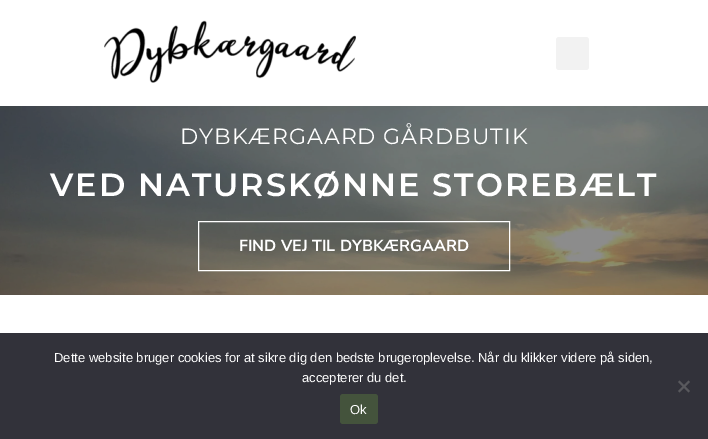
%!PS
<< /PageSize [708 439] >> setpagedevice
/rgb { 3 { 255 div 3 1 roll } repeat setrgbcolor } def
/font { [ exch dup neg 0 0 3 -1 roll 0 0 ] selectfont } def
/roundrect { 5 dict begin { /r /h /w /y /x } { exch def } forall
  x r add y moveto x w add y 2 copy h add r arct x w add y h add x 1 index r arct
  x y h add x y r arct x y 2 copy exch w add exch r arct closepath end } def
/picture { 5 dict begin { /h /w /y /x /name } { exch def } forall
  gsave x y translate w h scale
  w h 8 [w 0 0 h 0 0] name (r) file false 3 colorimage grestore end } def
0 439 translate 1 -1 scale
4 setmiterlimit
255 255 255 rgb
0 0 708 439 rectfill
(img/1.rgb) 104 20 252 63 picture
242 242 242 rgb
556 37 33 33 3 roundrect fill
(img/2.rgb) 0 106 708 189 picture
255 255 255 rgb
198.5 221.5 311 49 rectstroke
50 50 58 rgb
0 333 708 106 rectfill
89 89 93 rgb
688.5 380.5 moveto 690 382 lineto 679.5 392.5 lineto 678 391 lineto closepath fill
678 382 moveto 679.5 380.5 lineto 690 391 lineto 688.5 392.5 lineto closepath fill
68 83 60 rgb
340 394 38 30 3 roundrect fill
/Montserrat-Regular 22 font
255 255 255 rgb
180 144 moveto 1 0 (DYBKÆRGAARD GÅRDBUTIK) ashow
/Montserrat-SemiBold 32 font
50 196 moveto 2 0 (VED NATURSKØNNE STOREBÆLT) ashow
/NunitoSans-Bold 16 font
239 251 moveto (FIND VEJ TIL DYBKÆRGAARD) show
/LiberationSans-Regular 13 font
[
  [(Dette website bruger cookies for at sikre dig den bedste brugeroplevelse. Når du klikker videre på siden,) 54 362]
  [(accepterer du det.) 302 382]
  [(Ok) 350 414]
] { aload pop moveto show } forall
showpage
